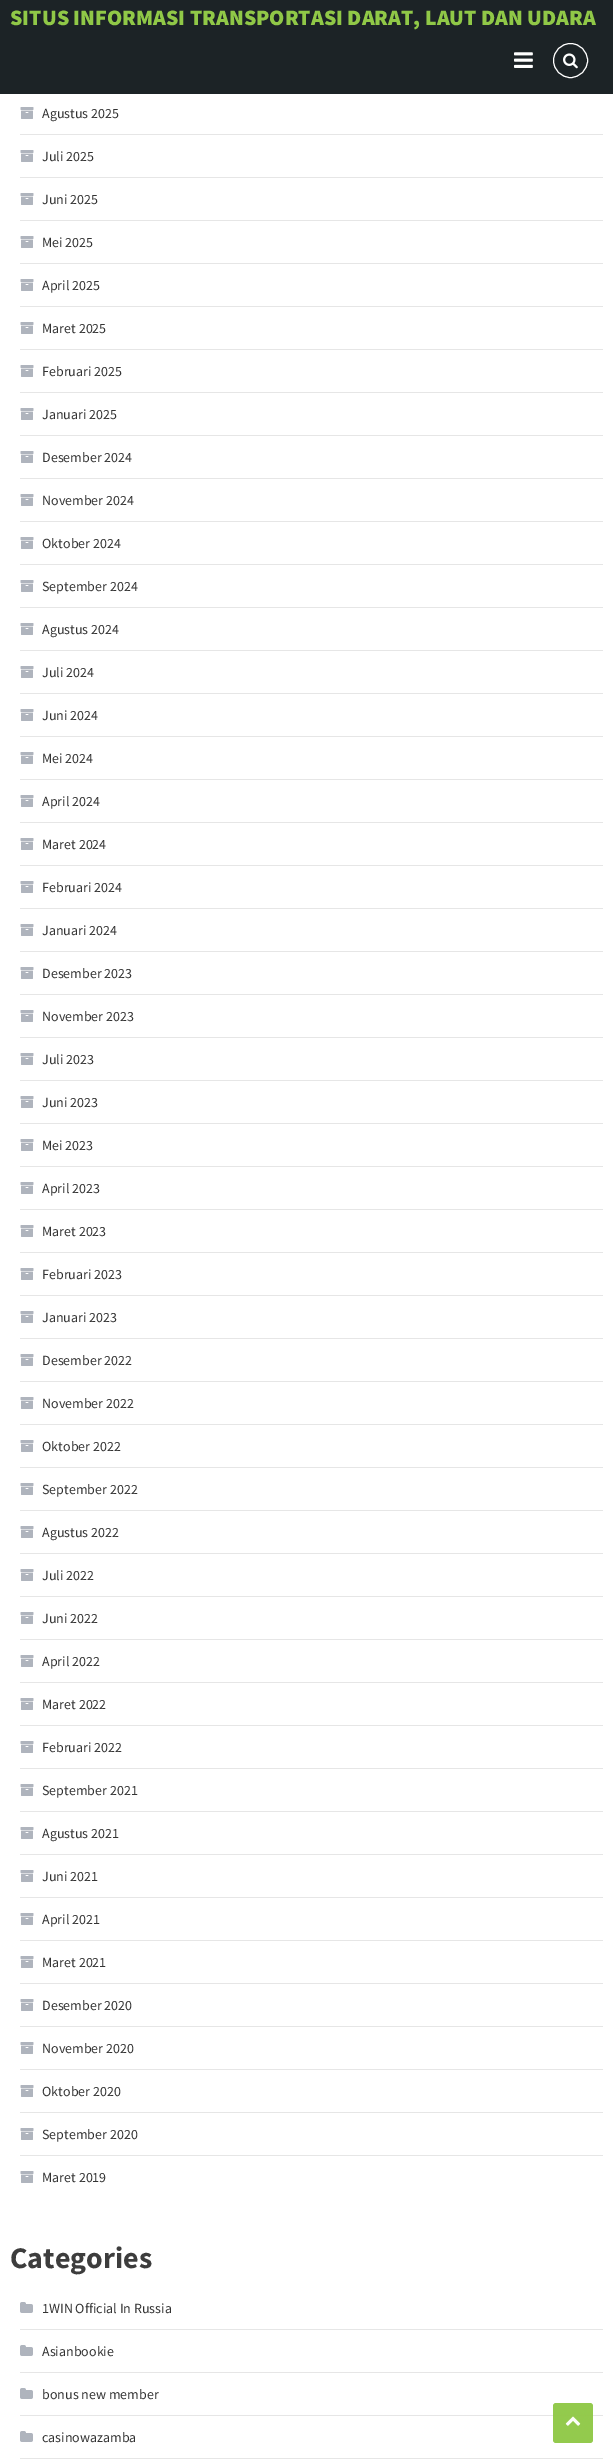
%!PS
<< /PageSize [613 2463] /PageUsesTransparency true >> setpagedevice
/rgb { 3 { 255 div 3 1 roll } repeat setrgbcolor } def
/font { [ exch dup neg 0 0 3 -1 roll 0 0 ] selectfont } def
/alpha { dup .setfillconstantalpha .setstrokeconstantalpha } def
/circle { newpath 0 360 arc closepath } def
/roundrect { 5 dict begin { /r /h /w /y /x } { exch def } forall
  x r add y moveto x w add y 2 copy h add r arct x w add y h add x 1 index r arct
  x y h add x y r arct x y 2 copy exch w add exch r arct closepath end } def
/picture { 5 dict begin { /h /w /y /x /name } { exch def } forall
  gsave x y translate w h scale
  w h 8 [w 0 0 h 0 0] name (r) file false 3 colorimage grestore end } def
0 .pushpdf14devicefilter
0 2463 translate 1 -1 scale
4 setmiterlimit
255 255 255 rgb
0 0 613 2463 rectfill
28 35 38 rgb
0 0 613 94 rectfill
(img/1.rgb) 514 52 19 16 picture
255 255 255 rgb
570.5 60.5 17 circle stroke
(img/2.rgb) 563 53 15 16 picture
230 230 230 rgb
20 134 583 1 rectfill
(img/3.rgb) 20 107 14 12 picture
20 177 583 1 rectfill
(img/3.rgb) 20 150 14 12 picture
20 220 583 1 rectfill
(img/3.rgb) 20 193 14 12 picture
20 263 583 1 rectfill
(img/3.rgb) 20 236 14 12 picture
20 306 583 1 rectfill
(img/3.rgb) 20 279 14 12 picture
20 349 583 1 rectfill
(img/3.rgb) 20 322 14 12 picture
20 392 583 1 rectfill
(img/3.rgb) 20 365 14 12 picture
20 435 583 1 rectfill
(img/3.rgb) 20 408 14 12 picture
20 478 583 1 rectfill
(img/3.rgb) 20 451 14 12 picture
20 521 583 1 rectfill
(img/3.rgb) 20 494 14 12 picture
20 564 583 1 rectfill
(img/3.rgb) 20 537 14 12 picture
20 607 583 1 rectfill
(img/3.rgb) 20 580 14 12 picture
20 650 583 1 rectfill
(img/3.rgb) 20 623 14 12 picture
20 693 583 1 rectfill
(img/3.rgb) 20 666 14 12 picture
20 736 583 1 rectfill
(img/3.rgb) 20 709 14 12 picture
20 779 583 1 rectfill
(img/3.rgb) 20 752 14 12 picture
20 822 583 1 rectfill
(img/3.rgb) 20 795 14 12 picture
20 865 583 1 rectfill
(img/3.rgb) 20 838 14 12 picture
20 908 583 1 rectfill
(img/3.rgb) 20 881 14 12 picture
20 951 583 1 rectfill
(img/3.rgb) 20 924 14 12 picture
20 994 583 1 rectfill
(img/3.rgb) 20 967 14 12 picture
20 1037 583 1 rectfill
(img/3.rgb) 20 1010 14 12 picture
20 1080 583 1 rectfill
(img/3.rgb) 20 1053 14 12 picture
20 1123 583 1 rectfill
(img/3.rgb) 20 1096 14 12 picture
20 1166 583 1 rectfill
(img/3.rgb) 20 1139 14 12 picture
20 1209 583 1 rectfill
(img/3.rgb) 20 1182 14 12 picture
20 1252 583 1 rectfill
(img/3.rgb) 20 1225 14 12 picture
20 1295 583 1 rectfill
(img/3.rgb) 20 1268 14 12 picture
20 1338 583 1 rectfill
(img/3.rgb) 20 1311 14 12 picture
20 1381 583 1 rectfill
(img/3.rgb) 20 1354 14 12 picture
20 1424 583 1 rectfill
(img/3.rgb) 20 1397 14 12 picture
20 1467 583 1 rectfill
(img/3.rgb) 20 1440 14 12 picture
20 1510 583 1 rectfill
(img/3.rgb) 20 1483 14 12 picture
20 1553 583 1 rectfill
(img/3.rgb) 20 1526 14 12 picture
20 1596 583 1 rectfill
(img/3.rgb) 20 1569 14 12 picture
20 1639 583 1 rectfill
(img/3.rgb) 20 1612 14 12 picture
20 1682 583 1 rectfill
(img/3.rgb) 20 1655 14 12 picture
20 1725 583 1 rectfill
(img/3.rgb) 20 1698 14 12 picture
20 1768 583 1 rectfill
(img/3.rgb) 20 1741 14 12 picture
20 1811 583 1 rectfill
(img/3.rgb) 20 1784 14 12 picture
20 1854 583 1 rectfill
(img/3.rgb) 20 1827 14 12 picture
20 1897 583 1 rectfill
(img/3.rgb) 20 1870 14 12 picture
20 1940 583 1 rectfill
(img/3.rgb) 20 1913 14 12 picture
20 1983 583 1 rectfill
(img/3.rgb) 20 1956 14 12 picture
20 2026 583 1 rectfill
(img/3.rgb) 20 1999 14 12 picture
20 2069 583 1 rectfill
(img/3.rgb) 20 2042 14 12 picture
20 2112 583 1 rectfill
(img/3.rgb) 20 2085 14 12 picture
20 2155 583 1 rectfill
(img/3.rgb) 20 2128 14 12 picture
(img/3.rgb) 20 2171 14 12 picture
20 2329 583 1 rectfill
(img/4.rgb) 20 2302 13 11 picture
20 2372 583 1 rectfill
(img/4.rgb) 20 2345 13 11 picture
20 2415 583 1 rectfill
(img/4.rgb) 20 2388 13 11 picture
20 2458 583 1 rectfill
(img/4.rgb) 20 2431 13 11 picture
0.97 alpha
144 200 71 rgb
553 2403 40 40 3 roundrect fill
1 alpha
(img/5.rgb) 565 2416 16 10 picture
/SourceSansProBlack-Black 22 font
10 25 moveto (SITUS INFORMASI TRANSPORTASI DARAT, LAUT DAN UDARA) show
/SourceSansPro-Regular 14 font
51 51 51 rgb
[
  [(Agustus 2025) 42 118]
  [(Juli 2025) 42 161]
  [(Juni 2025) 42 204]
  [(Mei 2025) 42 247]
  [(April 2025) 42 290]
  [(Maret 2025) 42 333]
  [(Februari 2025) 42 376]
  [(Januari 2025) 42 419]
  [(Desember 2024) 42 462]
  [(November 2024) 42 505]
  [(Oktober 2024) 42 548]
  [(September 2024) 42 591]
  [(Agustus 2024) 42 634]
  [(Juli 2024) 42 677]
  [(Juni 2024) 42 720]
  [(Mei 2024) 42 763]
  [(April 2024) 42 806]
  [(Maret 2024) 42 849]
  [(Februari 2024) 42 892]
  [(Januari 2024) 42 935]
  [(Desember 2023) 42 978]
  [(November 2023) 42 1021]
  [(Juli 2023) 42 1064]
  [(Juni 2023) 42 1107]
  [(Mei 2023) 42 1150]
  [(April 2023) 42 1193]
  [(Maret 2023) 42 1236]
  [(Februari 2023) 42 1279]
  [(Januari 2023) 42 1322]
  [(Desember 2022) 42 1365]
  [(November 2022) 42 1408]
  [(Oktober 2022) 42 1451]
  [(September 2022) 42 1494]
  [(Agustus 2022) 42 1537]
  [(Juli 2022) 42 1580]
  [(Juni 2022) 42 1623]
  [(April 2022) 42 1666]
  [(Maret 2022) 42 1709]
  [(Februari 2022) 42 1752]
  [(September 2021) 42 1795]
  [(Agustus 2021) 42 1838]
  [(Juni 2021) 42 1881]
  [(April 2021) 42 1924]
  [(Maret 2021) 42 1967]
  [(Desember 2020) 42 2010]
  [(November 2020) 42 2053]
  [(Oktober 2020) 42 2096]
  [(September 2020) 42 2139]
  [(Maret 2019) 42 2182]
] { aload pop moveto show } forall
/SourceSansPro-Bold 30 font
61 61 61 rgb
10 2268 moveto (Categories) show
/SourceSansPro-Regular 14 font
51 51 51 rgb
[
  [(1WIN Official In Russia) 42 2313]
  [(Asianbookie) 42 2356]
  [(bonus new member) 42 2399]
  [(casinowazamba) 42 2442]
] { aload pop moveto show } forall
.poppdf14devicefilter showpage
